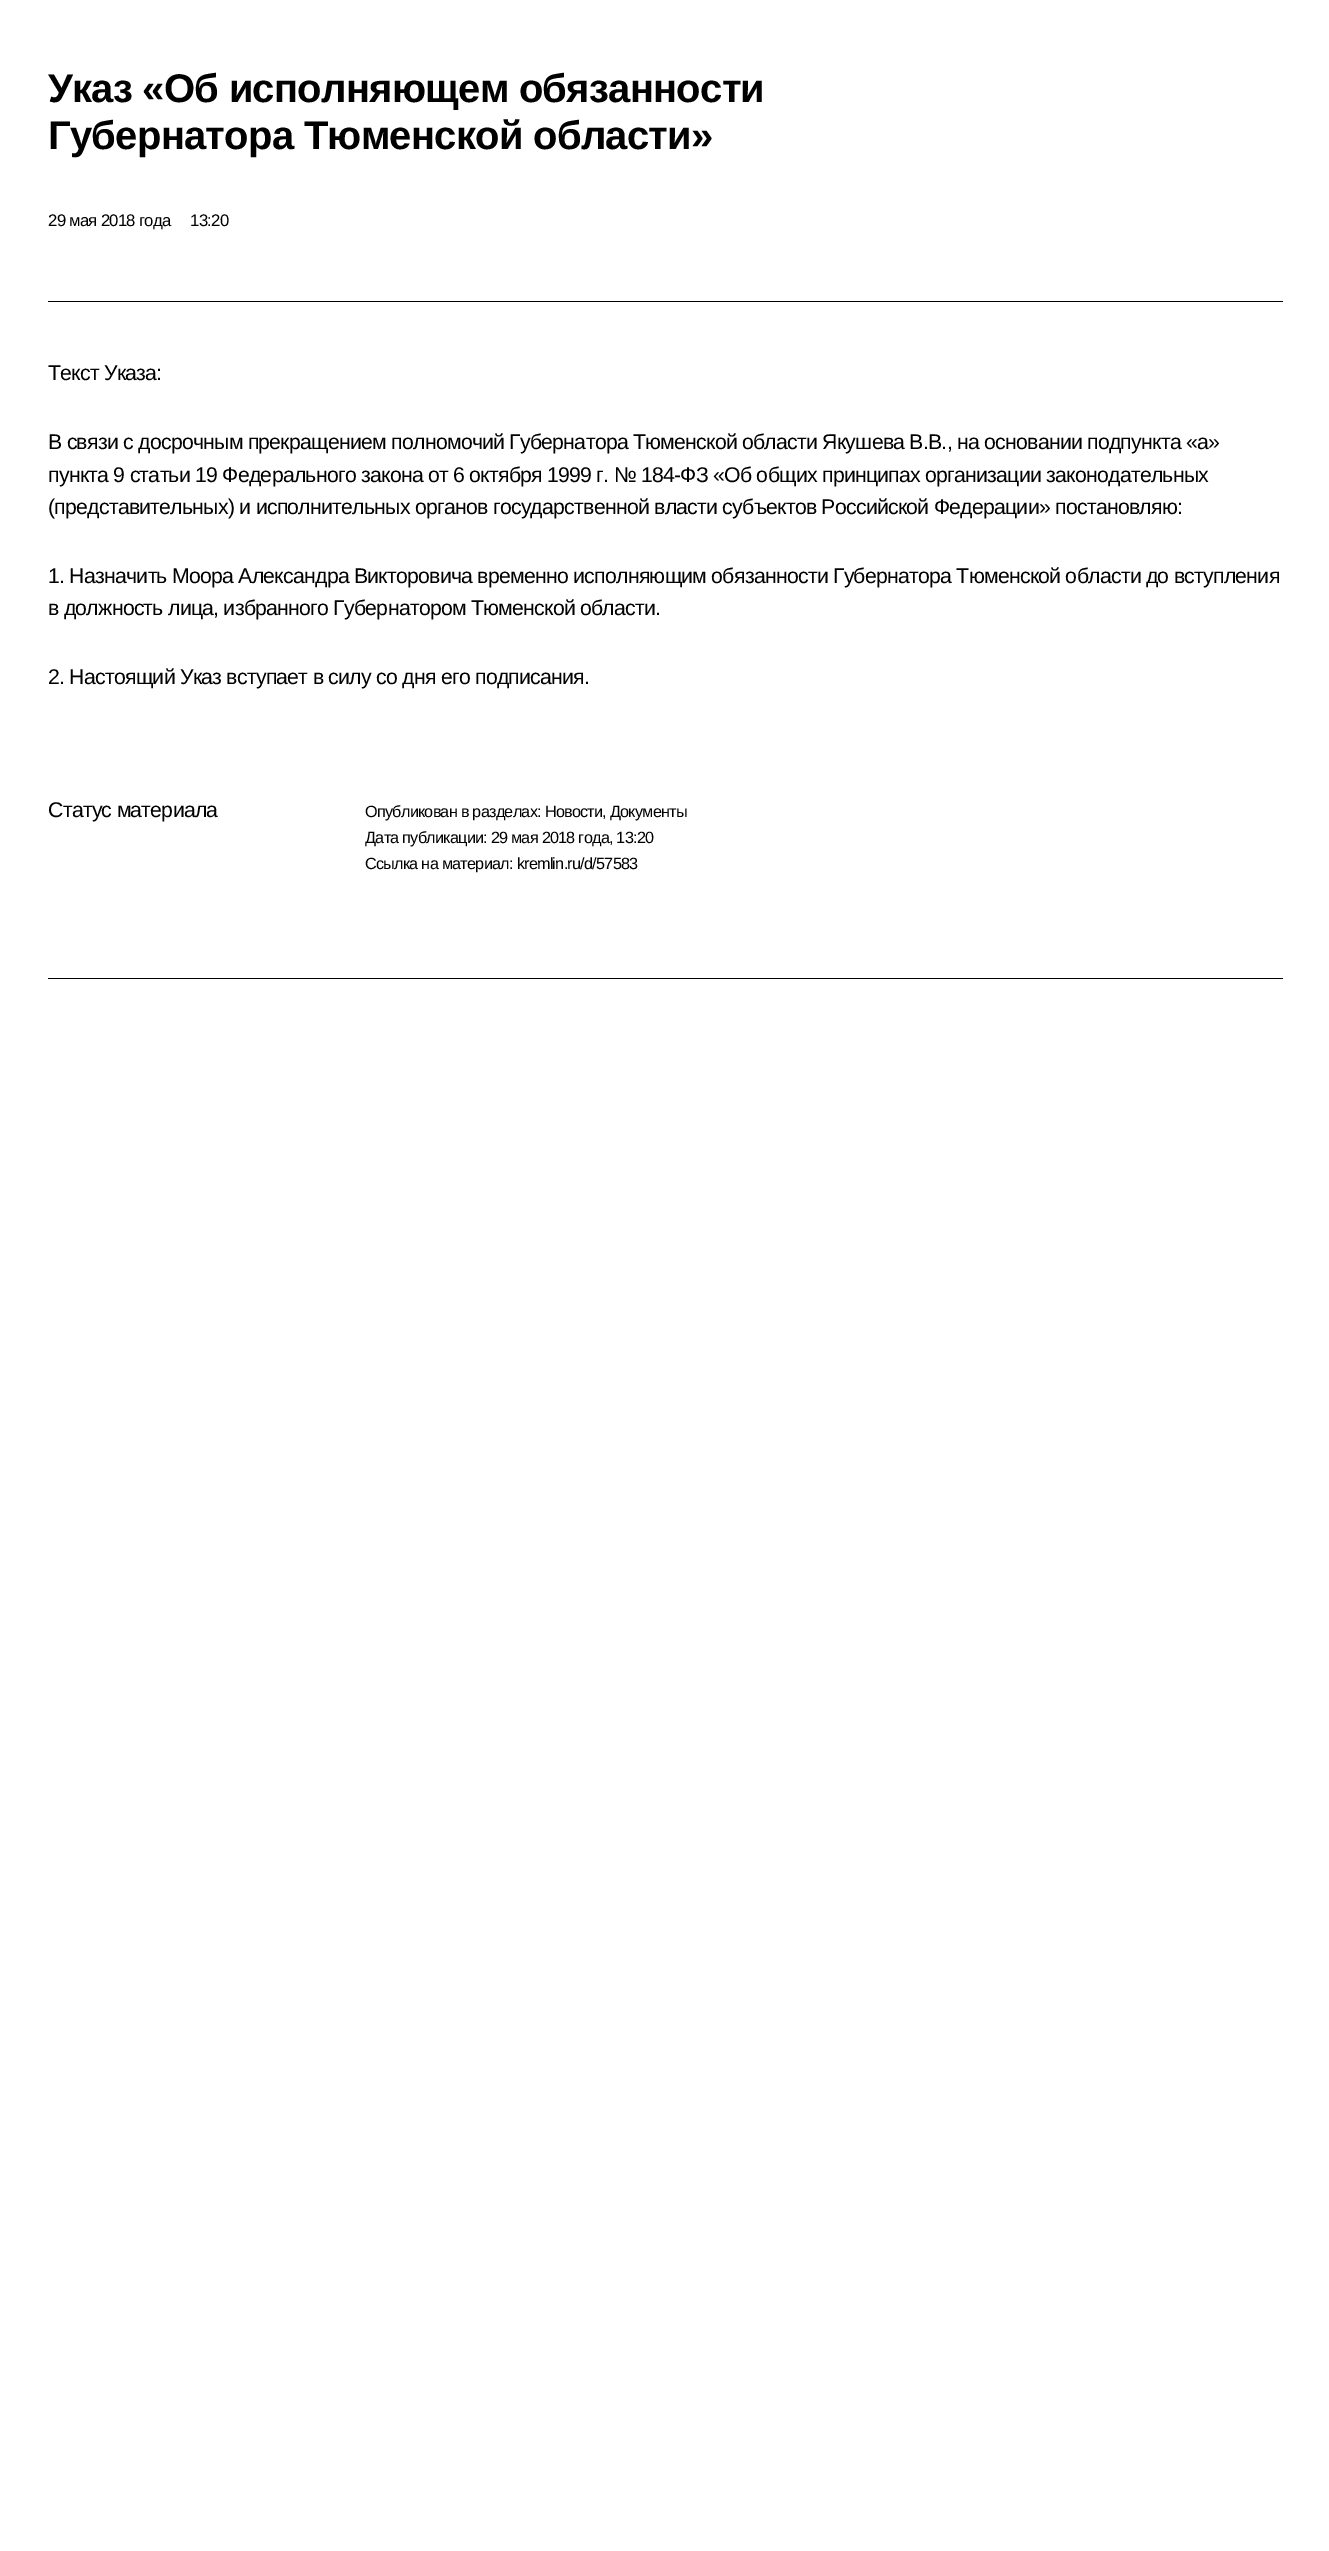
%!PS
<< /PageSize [1329 2551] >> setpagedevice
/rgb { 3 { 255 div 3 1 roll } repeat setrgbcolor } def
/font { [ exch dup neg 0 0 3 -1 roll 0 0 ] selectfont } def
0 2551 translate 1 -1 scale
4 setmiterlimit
255 255 255 rgb
0 0 1329 2551 rectfill
0 0 0 rgb
48 978 1235 1 rectfill
48 301 1235 1 rectfill
/LiberationSans-Bold 40 font
48 102 moveto -0.75 0 (Указ «Об исполняющем обязанности) ashow
48 149 moveto -0.75 0 (Губернатора Тюменской области») ashow
/LiberationSans-Regular 16.75 font
48 226 moveto -0.75 0 (29 мая 2018 года) ashow
190 226 moveto -0.75 0 (13:20) ashow
/LiberationSans-Regular 21.25 font
48 380 moveto -0.75 0 (Текст Указа:) ashow
48 449 moveto -0.75 0 (В связи с досрочным прекращением полномочий Губернатора Тюменской области Якушева В.В., на основании подпункта «а») ashow
48 482 moveto -0.75 0 (пункта 9 статьи 19 Федерального закона от 6 октября 1999 г. № 184-ФЗ «Об общих принципах организации законодательных) ashow
48 514 moveto -0.75 0 (\(представительных\) и исполнительных органов государственной власти субъектов Российской Федерации» постановляю:) ashow
48 583 moveto -0.75 0 (1. Назначить Моора Александра Викторовича временно исполняющим обязанности Губернатора Тюменской области до вступления) ashow
48 615 moveto -0.75 0 (в должность лица, избранного Губернатором Тюменской области.) ashow
48 684 moveto -0.75 0 (2. Настоящий Указ вступает в силу со дня его подписания.) ashow
48 817 moveto -0.75 0 (Статус материала) ashow
/LiberationSans-Regular 16.25 font
365 817 moveto -0.75 0 (Опубликован в разделах: Новости, Документы) ashow
365 843 moveto -0.75 0 (Дата публикации: 29 мая 2018 года, 13:20) ashow
365 869 moveto -0.75 0 (Ссылка на материал: kremlin.ru/d/57583) ashow
showpage
